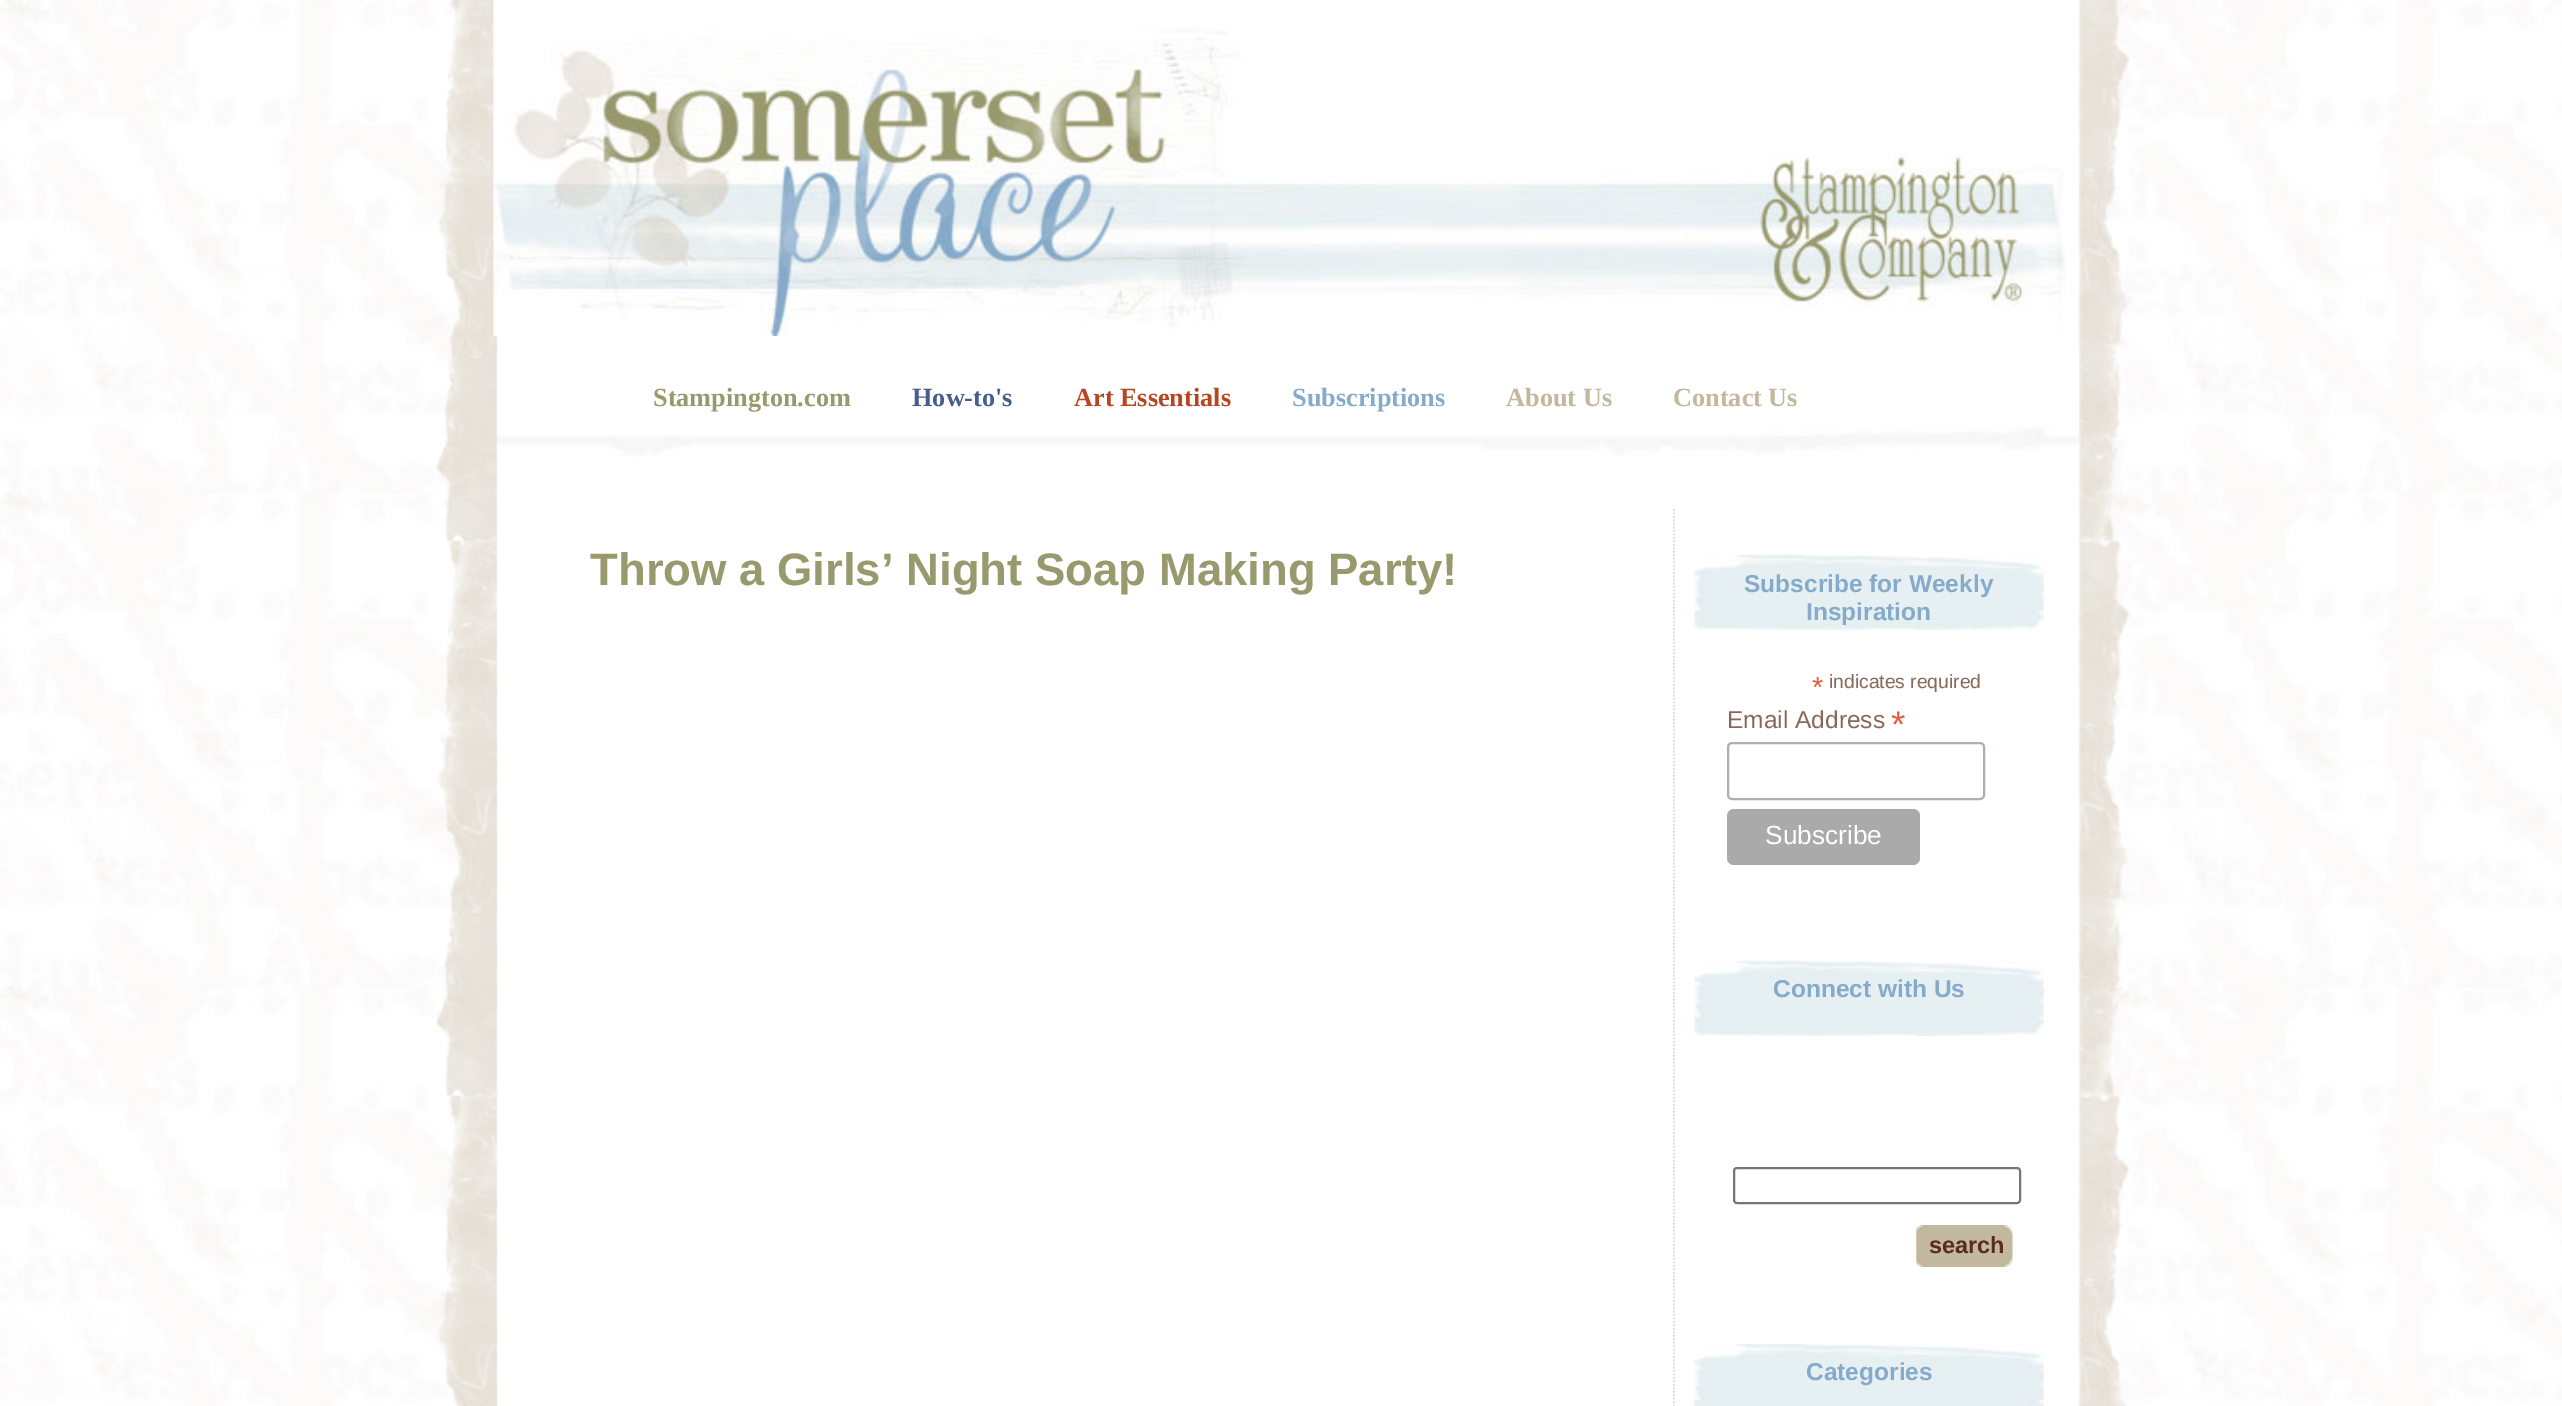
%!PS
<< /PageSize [2562 1406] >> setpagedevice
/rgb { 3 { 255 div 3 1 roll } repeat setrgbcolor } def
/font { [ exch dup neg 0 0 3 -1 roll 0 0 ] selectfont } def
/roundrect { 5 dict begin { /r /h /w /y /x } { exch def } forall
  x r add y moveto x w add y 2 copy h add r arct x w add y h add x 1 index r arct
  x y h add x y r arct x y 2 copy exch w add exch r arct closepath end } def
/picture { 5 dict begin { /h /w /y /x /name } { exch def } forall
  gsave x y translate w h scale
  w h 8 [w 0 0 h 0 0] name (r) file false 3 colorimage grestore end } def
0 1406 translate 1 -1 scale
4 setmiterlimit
255 255 255 rgb
0 0 2562 1406 rectfill
(img/1.rgb) 0 0 2562 1406 picture
(img/2.rgb) 436 0 1694 1406 picture
(img/3.rgb) 493 0 1573 336 picture
(img/4.rgb) 497 352 1582 105 picture
220 220 216 rgb
450 509 2 2 rectfill
1.8 setlinewidth
[1.75 1.75] 0 setdash
1674 509 moveto 1674 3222 lineto stroke
(img/5.rgb) 1694 554 350 76 picture
171 176 178 rgb
2 setlinewidth
[] 0 setdash
1728 743 256 56 4 roundrect stroke
170 170 170 rgb
1727 809 193 56 7 roundrect fill
(img/5.rgb) 1694 960 350 76 picture
118 118 118 rgb
1734 1168 286 35 3 roundrect stroke
(img/6.rgb) 1916 1225 97 42 picture
(img/7.rgb) 1694 1344 350 62 picture
/LiberationSerif-Bold 26.25 font
152 153 109 rgb
653 406 moveto (Stampington.com) show
72 94 138 rgb
912 406 moveto (How-to's) show
184 69 34 rgb
1074 406 moveto (Art Essentials) show
134 170 202 rgb
1292 406 moveto (Subscriptions) show
194 184 157 rgb
1506 406 moveto (About Us) show
1673 406 moveto (Contact Us) show
/LiberationSans-Bold 45.5 font
152 153 109 rgb
590 585 moveto (Throw a Girls’ Night Soap Making Party!) show
/LiberationSans-Bold 24.5 font
134 170 202 rgb
1744 592 moveto (Subscribe for Weekly) show
1806 620 moveto (Inspiration) show
/LiberationSans-Regular 29 font
232 92 65 rgb
1812 697 moveto (*) show
/LiberationSans-Regular 19.25 font
137 103 90 rgb
1829 688 moveto (indicates required) show
/LiberationSans-Regular 24.5 font
1727 728 moveto (Email Address) show
/LiberationSans-Regular 37 font
232 92 65 rgb
1891 737 moveto (*) show
/LiberationSans-Regular 26.25 font
255 255 255 rgb
1765 844 moveto (Subscribe) show
/LiberationSans-Bold 24.5 font
134 170 202 rgb
1773 997 moveto (Connect with Us) show
/LiberationSans-Bold 23.5 font
88 43 35 rgb
1929 1253 moveto (search) show
/LiberationSans-Bold 24.5 font
134 170 202 rgb
1806 1380 moveto (Categories) show
showpage
